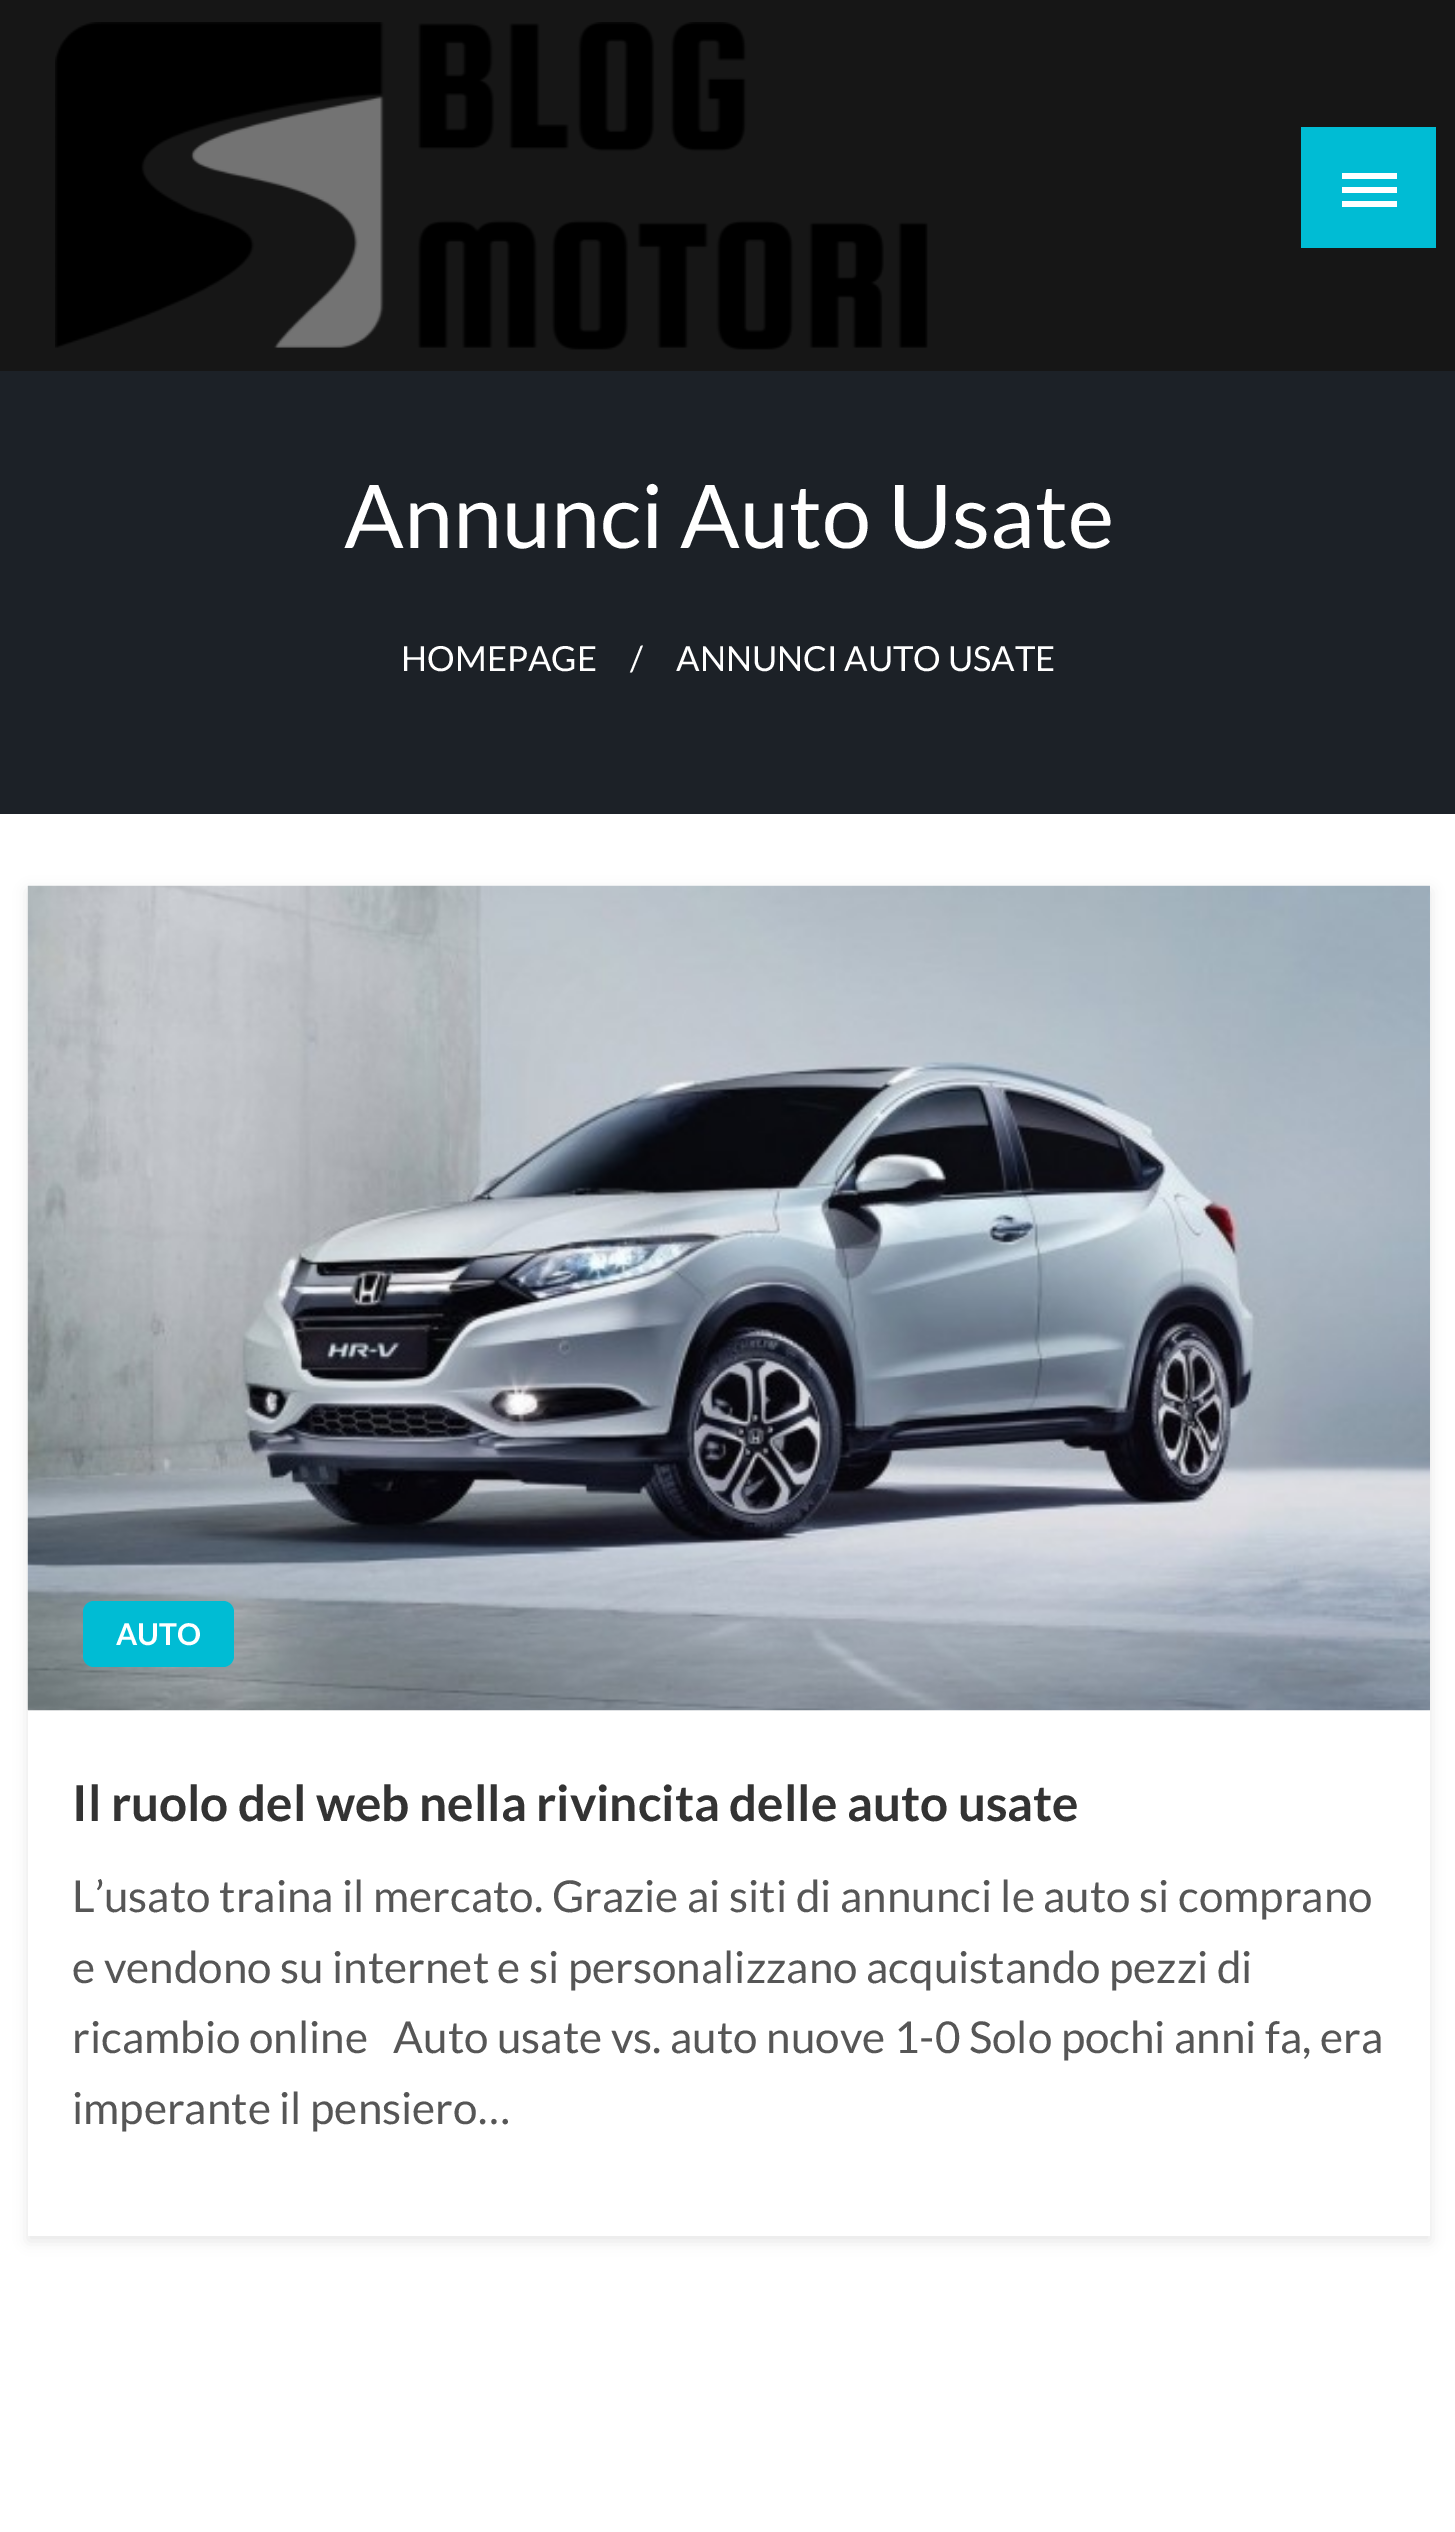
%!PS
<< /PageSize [1455 2532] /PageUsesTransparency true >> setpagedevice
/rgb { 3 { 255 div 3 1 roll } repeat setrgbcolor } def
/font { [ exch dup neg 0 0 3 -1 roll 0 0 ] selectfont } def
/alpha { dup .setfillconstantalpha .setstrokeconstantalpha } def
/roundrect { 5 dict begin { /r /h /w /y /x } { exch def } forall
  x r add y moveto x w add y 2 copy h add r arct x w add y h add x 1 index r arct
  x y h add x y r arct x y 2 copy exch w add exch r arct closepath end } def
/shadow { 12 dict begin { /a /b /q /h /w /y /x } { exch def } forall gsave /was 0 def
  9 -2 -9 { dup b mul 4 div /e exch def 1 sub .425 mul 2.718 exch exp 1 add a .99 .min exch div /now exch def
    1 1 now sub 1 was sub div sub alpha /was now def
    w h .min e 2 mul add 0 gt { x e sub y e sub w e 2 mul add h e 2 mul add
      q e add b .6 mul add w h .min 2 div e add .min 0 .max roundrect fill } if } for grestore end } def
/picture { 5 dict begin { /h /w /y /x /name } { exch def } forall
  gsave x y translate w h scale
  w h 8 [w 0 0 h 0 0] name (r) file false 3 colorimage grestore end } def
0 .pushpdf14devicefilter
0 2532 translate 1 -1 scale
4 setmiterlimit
22 22 22 rgb
0 0 1455 2532 rectfill
(img/1.rgb) 55 22 873 328 picture
[
  [1301 127 135 121 0 188 212]
  [1342 173 55 6 255 255 255]
  [1342 187 55 6 255 255 255]
  [1342 201 55 6 255 255 255]
  [0 814 1455 1718 255 255 255]
  [0 371 1455 443 28 33 39]
] { aload pop rgb rectfill } forall
0 0 0 rgb
28 891 1402 1350 0 7 0.1 shadow
255 255 255 rgb
28 1710 1402 526 rectfill
(img/2.rgb) 27 885 1403 826 picture
0 188 212 rgb
83 1601 151 66 11 roundrect fill
/Lato-Regular 88 font
255 255 255 rgb
344 548 moveto (Annunci Auto Usate) show
/Lato-Regular 34.6 font
[
  [(HOMEPAGE) 401 671]
  [(/) 630 671]
  [(ANNUNCI AUTO USATE) 676 671]
] { aload pop moveto show } forall
/Lato-Bold 30 font
116 1645 moveto (AUTO) show
/Lato-Bold 49.5 font
51 51 51 rgb
72 1821 moveto (Il ruolo del web nella rivincita delle auto usate) show
/Lato-Regular 44 font
86 86 86 rgb
[
  [(L’usato traina il mercato. Grazie ai siti di annunci le auto si comprano) 72 1912]
  [(e vendono su internet e si personalizzano acquistando pezzi di) 72 1983]
  [(ricambio online   Auto usate vs. auto nuove 1-0 Solo pochi anni fa, era) 72 2053]
  [(imperante il pensiero…) 72 2124]
] { aload pop moveto show } forall
.poppdf14devicefilter showpage
